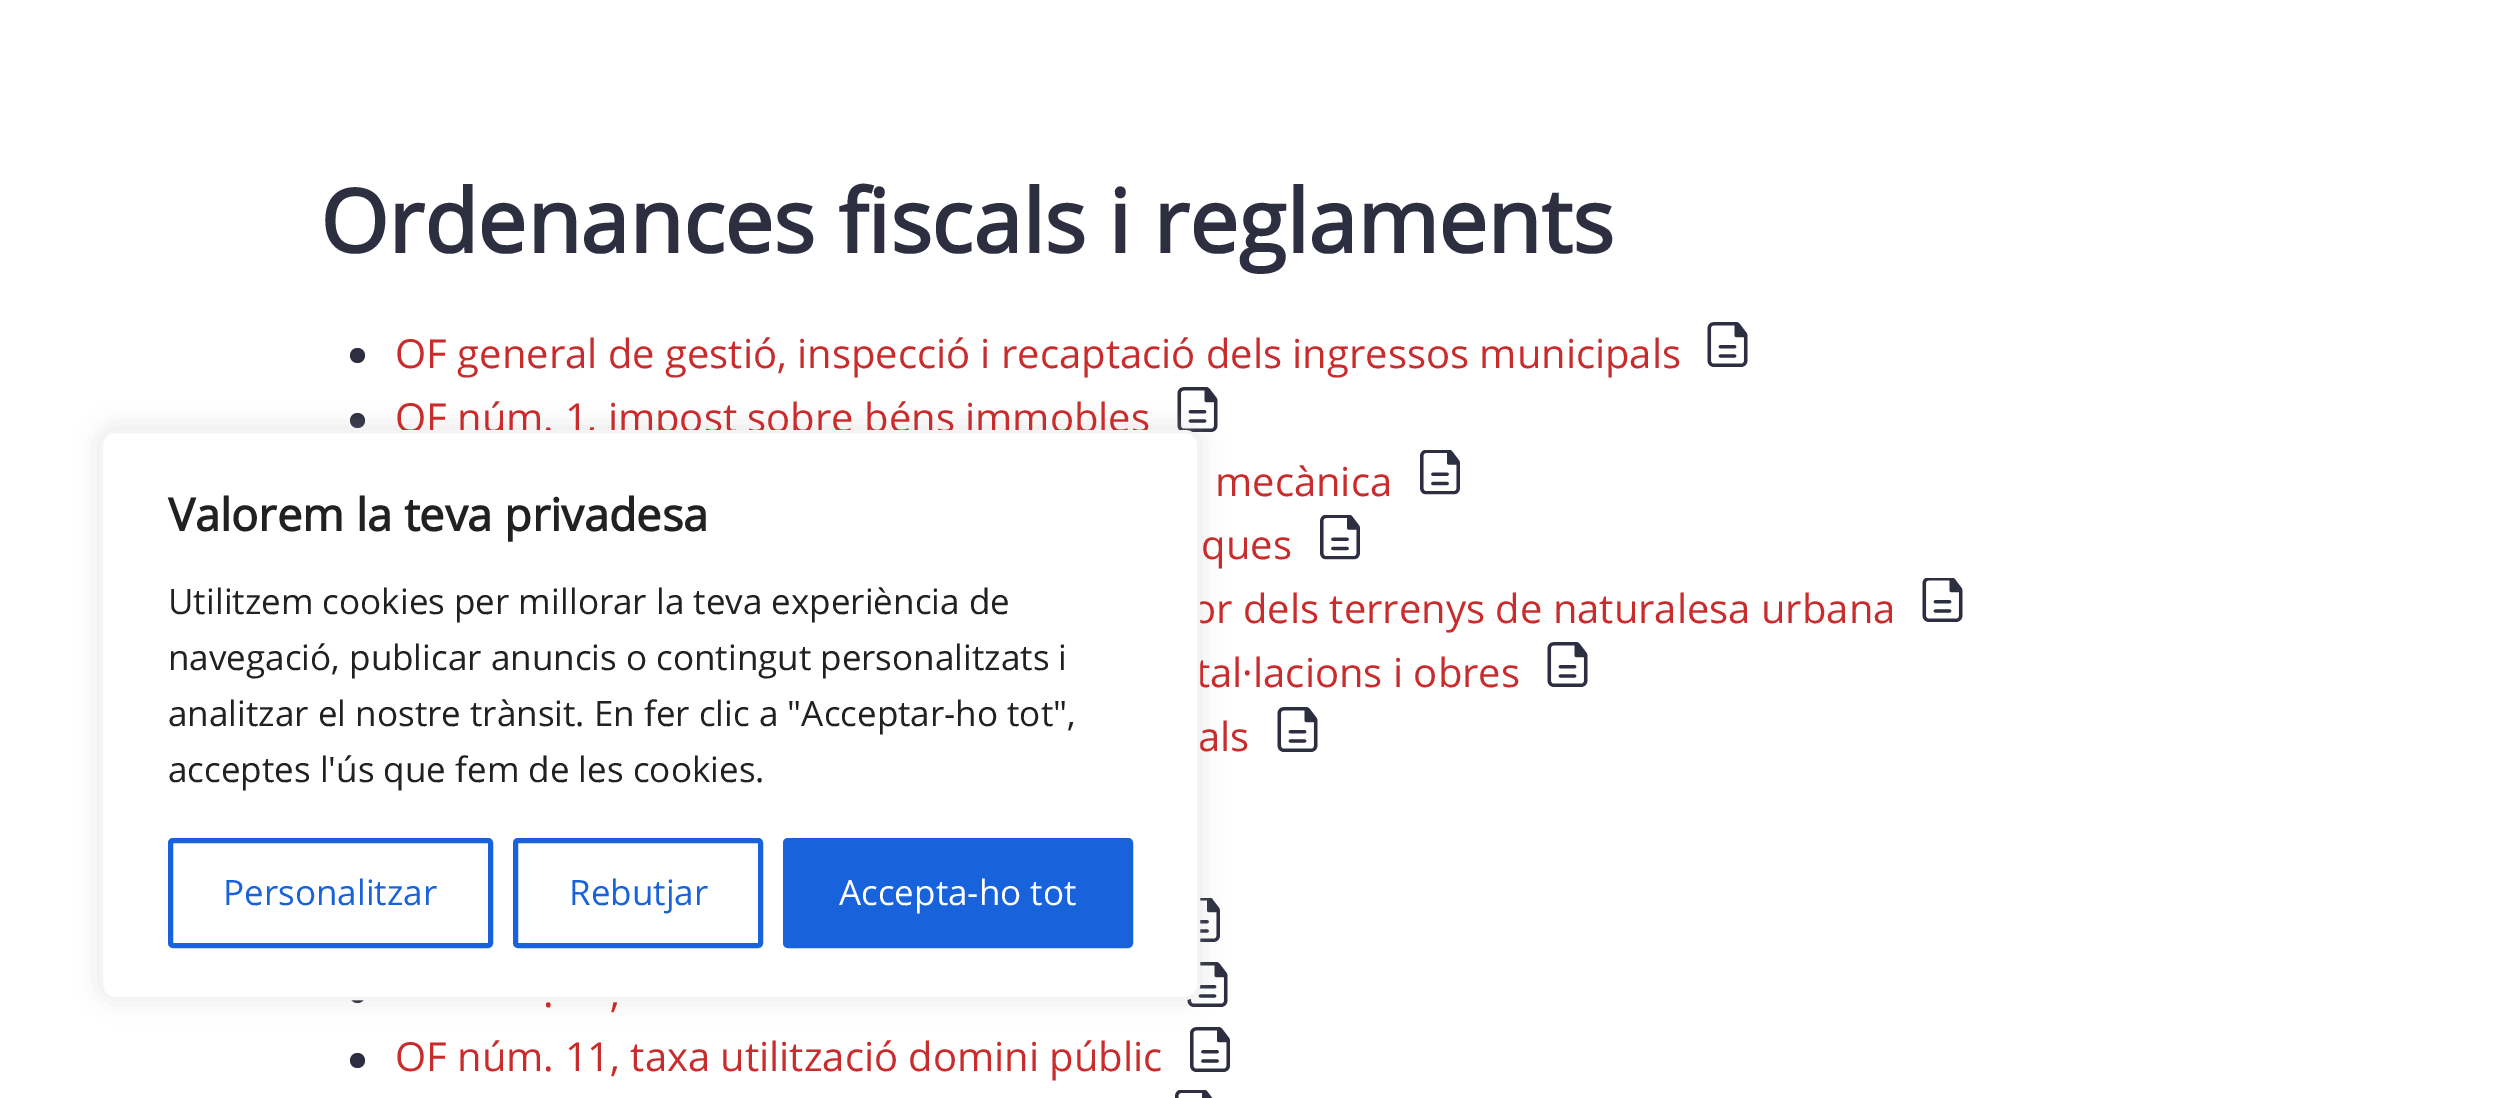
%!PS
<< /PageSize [2513 1098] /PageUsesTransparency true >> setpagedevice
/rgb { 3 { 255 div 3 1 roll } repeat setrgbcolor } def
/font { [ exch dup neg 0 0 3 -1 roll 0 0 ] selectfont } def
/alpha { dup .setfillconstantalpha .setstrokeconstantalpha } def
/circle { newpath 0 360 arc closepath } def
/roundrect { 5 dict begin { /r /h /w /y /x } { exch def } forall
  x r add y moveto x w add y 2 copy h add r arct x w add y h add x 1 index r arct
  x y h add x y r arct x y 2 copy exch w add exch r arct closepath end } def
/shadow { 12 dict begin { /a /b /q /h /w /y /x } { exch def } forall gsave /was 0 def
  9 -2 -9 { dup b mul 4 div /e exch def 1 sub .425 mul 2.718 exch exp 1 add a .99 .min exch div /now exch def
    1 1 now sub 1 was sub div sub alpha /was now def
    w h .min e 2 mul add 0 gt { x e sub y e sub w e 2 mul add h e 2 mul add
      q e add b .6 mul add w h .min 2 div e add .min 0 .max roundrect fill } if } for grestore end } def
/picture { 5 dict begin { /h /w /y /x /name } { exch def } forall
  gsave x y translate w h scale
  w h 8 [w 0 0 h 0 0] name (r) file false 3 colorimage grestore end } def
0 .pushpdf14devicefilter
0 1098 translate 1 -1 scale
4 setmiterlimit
255 255 255 rgb
0 0 2513 1098 rectfill
45 46 64 rgb
357.5 355.5 7.5 circle fill
(img/1.rgb) 1707 322 41 45 picture
357.5 420.5 7.5 circle fill
(img/2.rgb) 1177 387 41 45 picture
(img/3.rgb) 1420 450 40 45 picture
(img/3.rgb) 1320 515 40 45 picture
(img/4.rgb) 1922 578 41 44 picture
(img/2.rgb) 1547 642 41 45 picture
(img/2.rgb) 1277 707 41 45 picture
(img/5.rgb) 1200 898 20 44 picture
357.5 995.5 7.5 circle fill
(img/2.rgb) 1187 962 41 45 picture
357.5 1060.5 7.5 circle fill
(img/6.rgb) 1190 1027 40 45 picture
(img/7.rgb) 1175 1090 38 8 picture
172 171 171 rgb
100 428 1100 570 15 12.5 0.3 shadow
/OpenSans-Bold 87.5 font
45 46 64 rgb
320 253 moveto (Ordenances fiscals i reglaments) show
/OpenSans-Regular 40 font
201 44 44 rgb
[
  [(OF general de gestió, inspecció i recaptació dels ingressos municipals) 395 368]
  [(OF núm. 1, impost sobre béns immobles) 395 432]
  [(mecànica) 1215 496]
  [(ques) 1201 559]
  [(or dels terrenys de naturalesa urbana) 1192 623]
  [(tal·lacions i obres) 1196 687]
  [(als) 1198 751]
  [(.) 543 1007]
  [(,) 610 1007]
  [(OF núm. 11, taxa utilització domini públic) 395 1071]
] { aload pop moveto show } forall
255 255 255 rgb
101.5 431.5 1097 567 13.5 roundrect gsave fill grestore
244 244 244 rgb
3 setlinewidth
stroke
/OpenSans-Bold 45 font
33 33 33 rgb
168 531 moveto (Valorem la teva privadesa) show
/OpenSans-Regular 35 font
[
  [(Utilitzem cookies per millorar la teva experiència de) 168 614]
  [(navegació, publicar anuncis o contingut personalitzats i) 168 670]
  [(analitzar el nostre trànsit. En fer clic a "Acceptar-ho tot",) 168 726]
  [(acceptes l'ús que fem de les cookies.) 168 782]
] { aload pop moveto show } forall
24 99 220 rgb
5 setlinewidth
170.5 840.5 320 105 2.5 roundrect stroke
223 905 moveto (Personalitzar) show
515.5 840.5 245 105 2.5 roundrect stroke
569 905 moveto (Rebutjar) show
785.5 840.5 345 105 2.5 roundrect gsave fill grestore
stroke
255 255 255 rgb
839 905 moveto (Accepta-ho tot) show
.poppdf14devicefilter showpage
